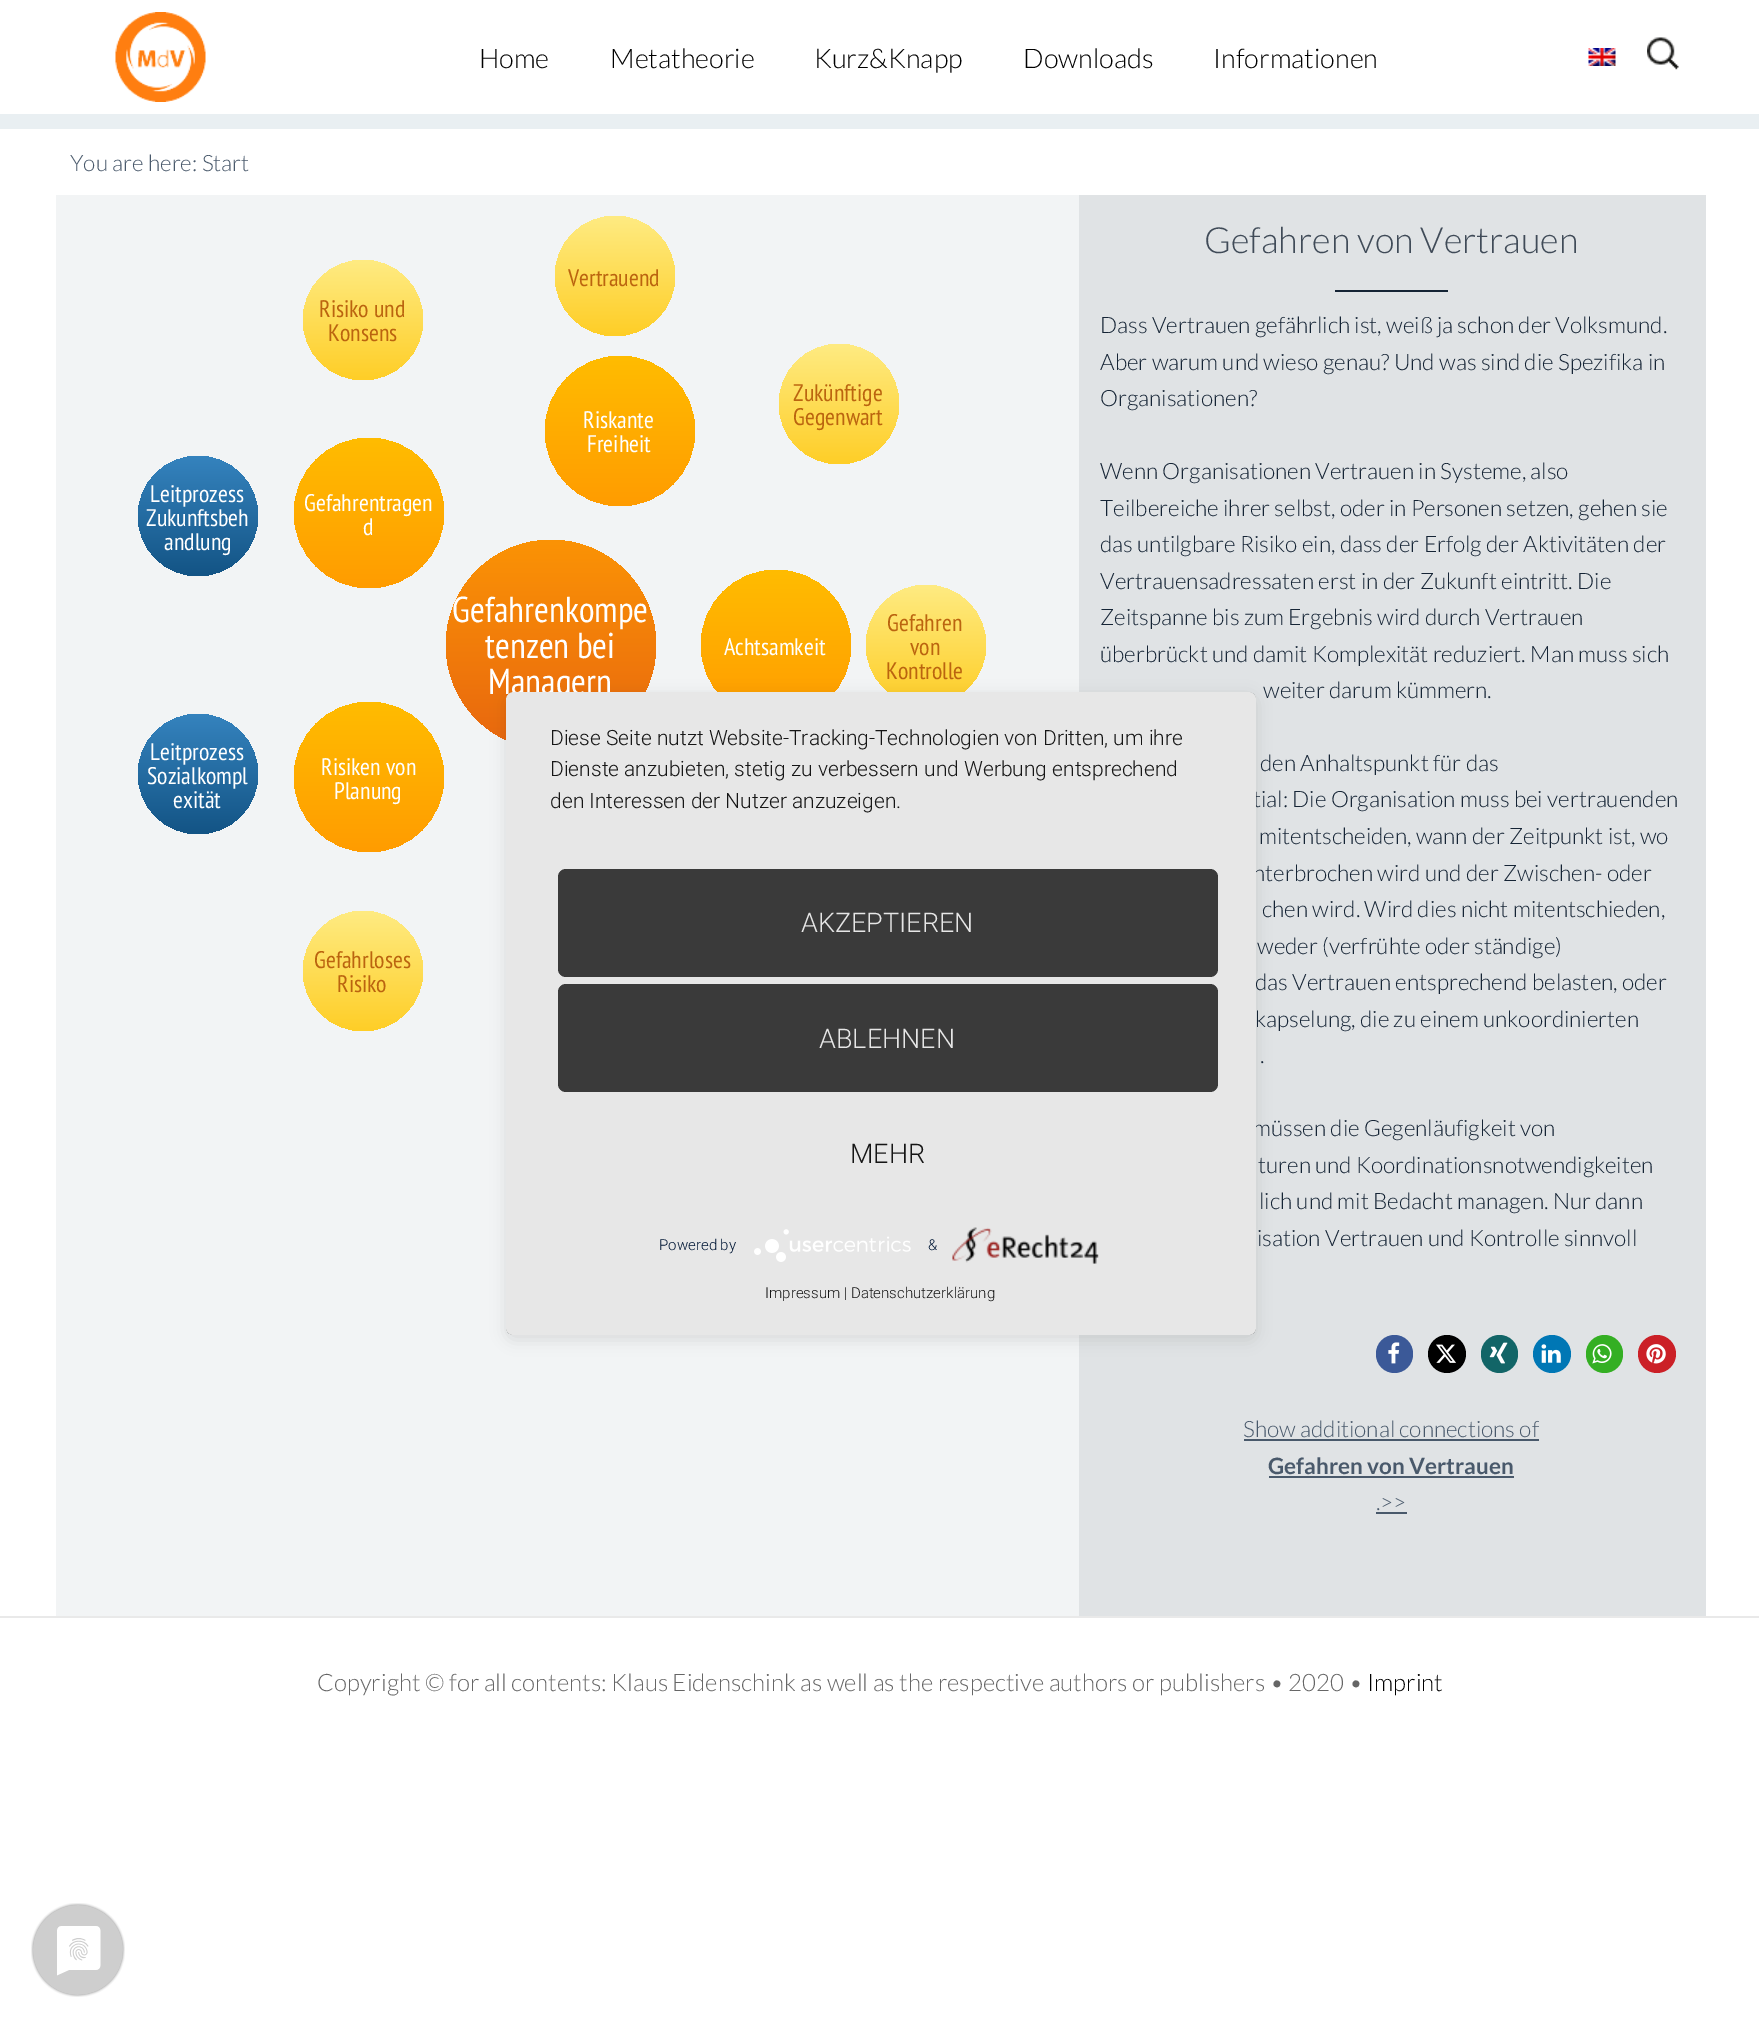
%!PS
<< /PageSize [1759 2027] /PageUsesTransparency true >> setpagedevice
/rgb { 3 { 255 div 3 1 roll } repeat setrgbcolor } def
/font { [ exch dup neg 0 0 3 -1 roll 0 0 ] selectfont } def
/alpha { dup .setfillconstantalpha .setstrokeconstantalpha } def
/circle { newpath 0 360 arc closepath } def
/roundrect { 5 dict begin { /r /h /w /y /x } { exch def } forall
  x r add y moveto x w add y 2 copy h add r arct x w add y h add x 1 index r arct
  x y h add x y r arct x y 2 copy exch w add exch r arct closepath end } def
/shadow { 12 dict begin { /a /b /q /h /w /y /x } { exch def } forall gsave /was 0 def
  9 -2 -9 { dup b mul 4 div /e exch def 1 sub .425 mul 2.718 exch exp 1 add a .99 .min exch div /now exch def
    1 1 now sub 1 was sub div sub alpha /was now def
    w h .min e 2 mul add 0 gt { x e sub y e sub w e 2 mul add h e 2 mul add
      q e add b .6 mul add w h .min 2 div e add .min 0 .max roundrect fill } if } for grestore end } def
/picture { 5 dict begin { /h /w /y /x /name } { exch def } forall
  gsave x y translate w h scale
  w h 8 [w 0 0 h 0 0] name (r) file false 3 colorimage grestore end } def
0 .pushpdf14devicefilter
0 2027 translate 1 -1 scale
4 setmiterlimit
255 255 255 rgb
0 0 1759 2027 rectfill
233 239 242 rgb
0 114 1759 15 rectfill
(img/1.rgb) 115 12 91 90 picture
(img/2.rgb) 1588 48 28 18 picture
(img/3.rgb) 1647 37 32 33 picture
242 244 245 rgb
56 195 1023 1421 rectfill
gsave 615 276 60 circle clip newpath
<< /ShadingType 2 /ColorSpace /DeviceRGB /Coords [615 216 615 336] /Extend [true true] /Function << /FunctionType 2 /Domain [0 1] /C0 [0.996 0.922 0.51] /C1 [1 0.808 0.153] /N 1 >> >> shfill grestore
gsave 363 320 60 circle clip newpath
<< /ShadingType 2 /ColorSpace /DeviceRGB /Coords [363 260 363 380] /Extend [true true] /Function << /FunctionType 2 /Domain [0 1] /C0 [0.996 0.922 0.51] /C1 [1 0.808 0.153] /N 1 >> >> shfill grestore
gsave 620 431 75 circle clip newpath
<< /ShadingType 2 /ColorSpace /DeviceRGB /Coords [620 356 620 506] /Extend [true true] /Function << /FunctionType 2 /Domain [0 1] /C0 [1 0.737 0] /C1 [1 0.612 0] /N 1 >> >> shfill grestore
gsave 839 404 60 circle clip newpath
<< /ShadingType 2 /ColorSpace /DeviceRGB /Coords [839 344 839 464] /Extend [true true] /Function << /FunctionType 2 /Domain [0 1] /C0 [0.996 0.922 0.51] /C1 [1 0.808 0.153] /N 1 >> >> shfill grestore
gsave 198 516 60 circle clip newpath
<< /ShadingType 2 /ColorSpace /DeviceRGB /Coords [198 456 198 576] /Extend [true true] /Function << /FunctionType 2 /Domain [0 1] /C0 [0.208 0.514 0.745] /C1 [0.075 0.329 0.522] /N 1 >> >> shfill grestore
gsave 369 513 75 circle clip newpath
<< /ShadingType 2 /ColorSpace /DeviceRGB /Coords [369 438 369 588] /Extend [true true] /Function << /FunctionType 2 /Domain [0 1] /C0 [1 0.737 0] /C1 [1 0.612 0] /N 1 >> >> shfill grestore
gsave 551 645 105 circle clip newpath
<< /ShadingType 2 /ColorSpace /DeviceRGB /Coords [551 540 551 750] /Extend [true true] /Function << /FunctionType 2 /Domain [0 1] /C0 [0.984 0.576 0.02] /C1 [0.91 0.4 0.059] /N 1 >> >> shfill grestore
gsave 776 645 75 circle clip newpath
<< /ShadingType 2 /ColorSpace /DeviceRGB /Coords [776 570 776 720] /Extend [true true] /Function << /FunctionType 2 /Domain [0 1] /C0 [1 0.737 0] /C1 [1 0.612 0] /N 1 >> >> shfill grestore
gsave 926 645 60 circle clip newpath
<< /ShadingType 2 /ColorSpace /DeviceRGB /Coords [926 585 926 705] /Extend [true true] /Function << /FunctionType 2 /Domain [0 1] /C0 [0.996 0.922 0.51] /C1 [1 0.808 0.153] /N 1 >> >> shfill grestore
gsave 198 774 60 circle clip newpath
<< /ShadingType 2 /ColorSpace /DeviceRGB /Coords [198 714 198 834] /Extend [true true] /Function << /FunctionType 2 /Domain [0 1] /C0 [0.208 0.514 0.745] /C1 [0.075 0.329 0.522] /N 1 >> >> shfill grestore
gsave 369 777 75 circle clip newpath
<< /ShadingType 2 /ColorSpace /DeviceRGB /Coords [369 702 369 852] /Extend [true true] /Function << /FunctionType 2 /Domain [0 1] /C0 [1 0.737 0] /C1 [1 0.612 0] /N 1 >> >> shfill grestore
gsave 363 971 60 circle clip newpath
<< /ShadingType 2 /ColorSpace /DeviceRGB /Coords [363 911 363 1031] /Extend [true true] /Function << /FunctionType 2 /Domain [0 1] /C0 [0.996 0.922 0.51] /C1 [1 0.808 0.153] /N 1 >> >> shfill grestore
224 227 229 rgb
1079 195 627 1421 rectfill
21 36 53 rgb
1335 290 113 2 rectfill
59 89 152 rgb
1376 1335 37 38 18.5 roundrect fill
(img/4.rgb) 1388 1342 12 22 picture
0 0 0 rgb
1447 1354 19 circle fill
(img/5.rgb) 1436 1344 20 19 picture
18 101 103 rgb
1481 1335 37 38 18.5 roundrect fill
(img/6.rgb) 1489 1342 19 22 picture
0 119 181 rgb
1552 1354 19 circle fill
(img/7.rgb) 1541 1344 20 19 picture
52 175 35 rgb
1586 1335 37 38 18.5 roundrect fill
(img/8.rgb) 1592 1344 20 20 picture
203 32 39 rgb
1657 1354 19 circle fill
(img/9.rgb) 1646 1344 20 20 picture
[
  [1244 1439 295 2 73 89 107]
  [1269 1476 245 2 73 89 107]
  [1376 1512 31 2 73 89 107]
  [0 1616 1759 2 233 233 233]
] { aload pop rgb rectfill } forall
0 0 0 rgb
506 696 750 644 8 7.5 0.1 shadow
gsave
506 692 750 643 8 roundrect clip newpath
506 701 750 643 0 27 0.3 shadow
grestore
(img/12.rgb) 31 1903 94 94 picture
/Lato-Light 27 font
[
  [(Home) 479 68]
  [(Metatheorie) 610 68]
  [(Kurz&Knapp) 814 68]
  [(Downloads) 1023 68]
  [(Informationen) 1213 68]
] { aload pop moveto show } forall
/Lato-Light 22.5 font
73 89 107 rgb
70 171 moveto (You are here: Start) show
/PTSansNarrow-Regular 24 font
187 100 15 rgb
[
  [(Vertrauend) 568 286]
  [(Risiko und) 319 317]
  [(Konsens) 328 341]
] { aload pop moveto show } forall
255 255 255 rgb
583 428 moveto (Riskante) show
587 452 moveto (Freiheit) show
187 100 15 rgb
793 401 moveto (Zukünftige) show
793 425 moveto (Gegenwart) show
255 255 255 rgb
[
  [(Leitprozess) 150 502]
  [(Zukunftsbeh) 146 526]
  [(andlung) 164 550]
  [(Gefahrentragen) 304 511]
  [(d) 363 535]
] { aload pop moveto show } forall
/PTSansNarrow-Regular 36 font
[
  [(Gefahrenkompe) 452 622]
  [(tenzen bei) 485 658]
  [(Managern) 488 694]
] { aload pop moveto show } forall
/PTSansNarrow-Regular 24 font
724 655 moveto (Achtsamkeit) show
187 100 15 rgb
[
  [(Gefahren) 887 631]
  [(von) 910 655]
  [(Kontrolle) 886 679]
] { aload pop moveto show } forall
255 255 255 rgb
[
  [(Leitprozess) 150 760]
  [(Sozialkompl) 147 784]
  [(exität) 173 808]
  [(Risiken von) 321 775]
  [(Planung) 334 799]
] { aload pop moveto show } forall
187 100 15 rgb
314 968 moveto (Gefahrloses) show
337 992 moveto (Risiko) show
/Lato-Light 36 font
64 75 88 rgb
1204 253 moveto (Gefahren von Vertrauen) show
/Lato-Light 22.5 font
21 36 53 rgb
[
  [(Dass Vertrauen gefährlich ist, weiß ja schon der Volksmund.) 1100 333]
  [(Aber warum und wieso genau? Und was sind die Spezifika in) 1100 370]
  [(Organisationen?) 1100 406]
  [(Wenn Organisationen Vertrauen in Systeme, also) 1100 479]
  [(Teilbereiche ihrer selbst, oder in Personen setzen, gehen sie) 1100 516]
  [(das untilgbare Risiko ein, dass der Erfolg der Aktivitäten der) 1100 552]
  [(Vertrauensadressaten erst in der Zukunft eintritt. Die) 1100 589]
  [(Zeitspanne bis zum Ergebnis wird durch Vertrauen) 1100 625]
  [(überbrückt und damit Komplexität reduziert. Man muss sich) 1100 662]
  [(weiter darum kümmern.) 1263 698]
  [(den Anhaltspunkt für das) 1260 771]
  [(tial: Die Organisation muss bei vertrauenden) 1253 807]
  [(mitentscheiden, wann der Zeitpunkt ist, wo) 1259 844]
  [(nterbrochen wird und der Zwischen- oder) 1253 881]
  [(chen wird. Wird dies nicht mitentschieden,) 1262 917]
  [(weder \(verfrühte oder ständige\)) 1257 954]
  [(das Vertrauen entsprechend belasten, oder) 1255 990]
  [(kapselung, die zu einem unkoordinierten) 1255 1027]
  [(.) 1260 1063]
  [(müssen die Gegenläufigkeit von) 1253 1136]
  [(turen und Koordinationsnotwendigkeiten) 1258 1173]
  [(lich und mit Bedacht managen. Nur dann) 1259 1209]
  [(isation Vertrauen und Kontrolle sinnvoll) 1257 1246]
] { aload pop moveto show } forall
73 89 107 rgb
1243 1437 moveto (Show additional connections of) show
/Lato-Bold 22.5 font
1268 1474 moveto (Gefahren von Vertrauen) show
/Lato-Light 22.5 font
1376 1510 moveto (.>>) show
/Lato-Light 24 font
102 102 102 rgb
317 1691 moveto (Copyright © for all contents: Klaus Eidenschink as well as the respective authors or publishers • 2020 •) show
0 0 0 rgb
1367 1691 moveto (Imprint) show
231 231 231 rgb
506 692 750 643 8 roundrect fill
/Roboto-Light 21 font
22 22 22 rgb
550 745 moveto (Diese Seite nutzt Website-Tracking-Technologien von Dritten, um ihre) show
550 776 moveto (Dienste anzubieten, stetig zu verbessern und Werbung entsprechend) show
gsave
551 722 660 124 rectclip
550 808 moveto (den Interessen der Nutzer anzuzeigen.) show
grestore
58 58 58 rgb
558 869 660 108 8 roundrect fill
/Roboto-Light 27 font
230 230 230 rgb
801 932 moveto (AKZEPTIEREN) show
58 58 58 rgb
558 984 660 108 8 roundrect fill
230 230 230 rgb
819 1048 moveto (ABLEHNEN) show
22 22 22 rgb
850 1163 moveto (MEHR) show
/Roboto-Light 15 font
2 24 54 rgb
659 1250 moveto (Powered by) show
(img/10.rgb) 754 1229 157 33 picture
928 1250 moveto (&) show
(img/11.rgb) 952 1227 147 37 picture
22 22 22 rgb
765 1298 moveto (Impressum | Datenschutzerklärung) show
.poppdf14devicefilter showpage
